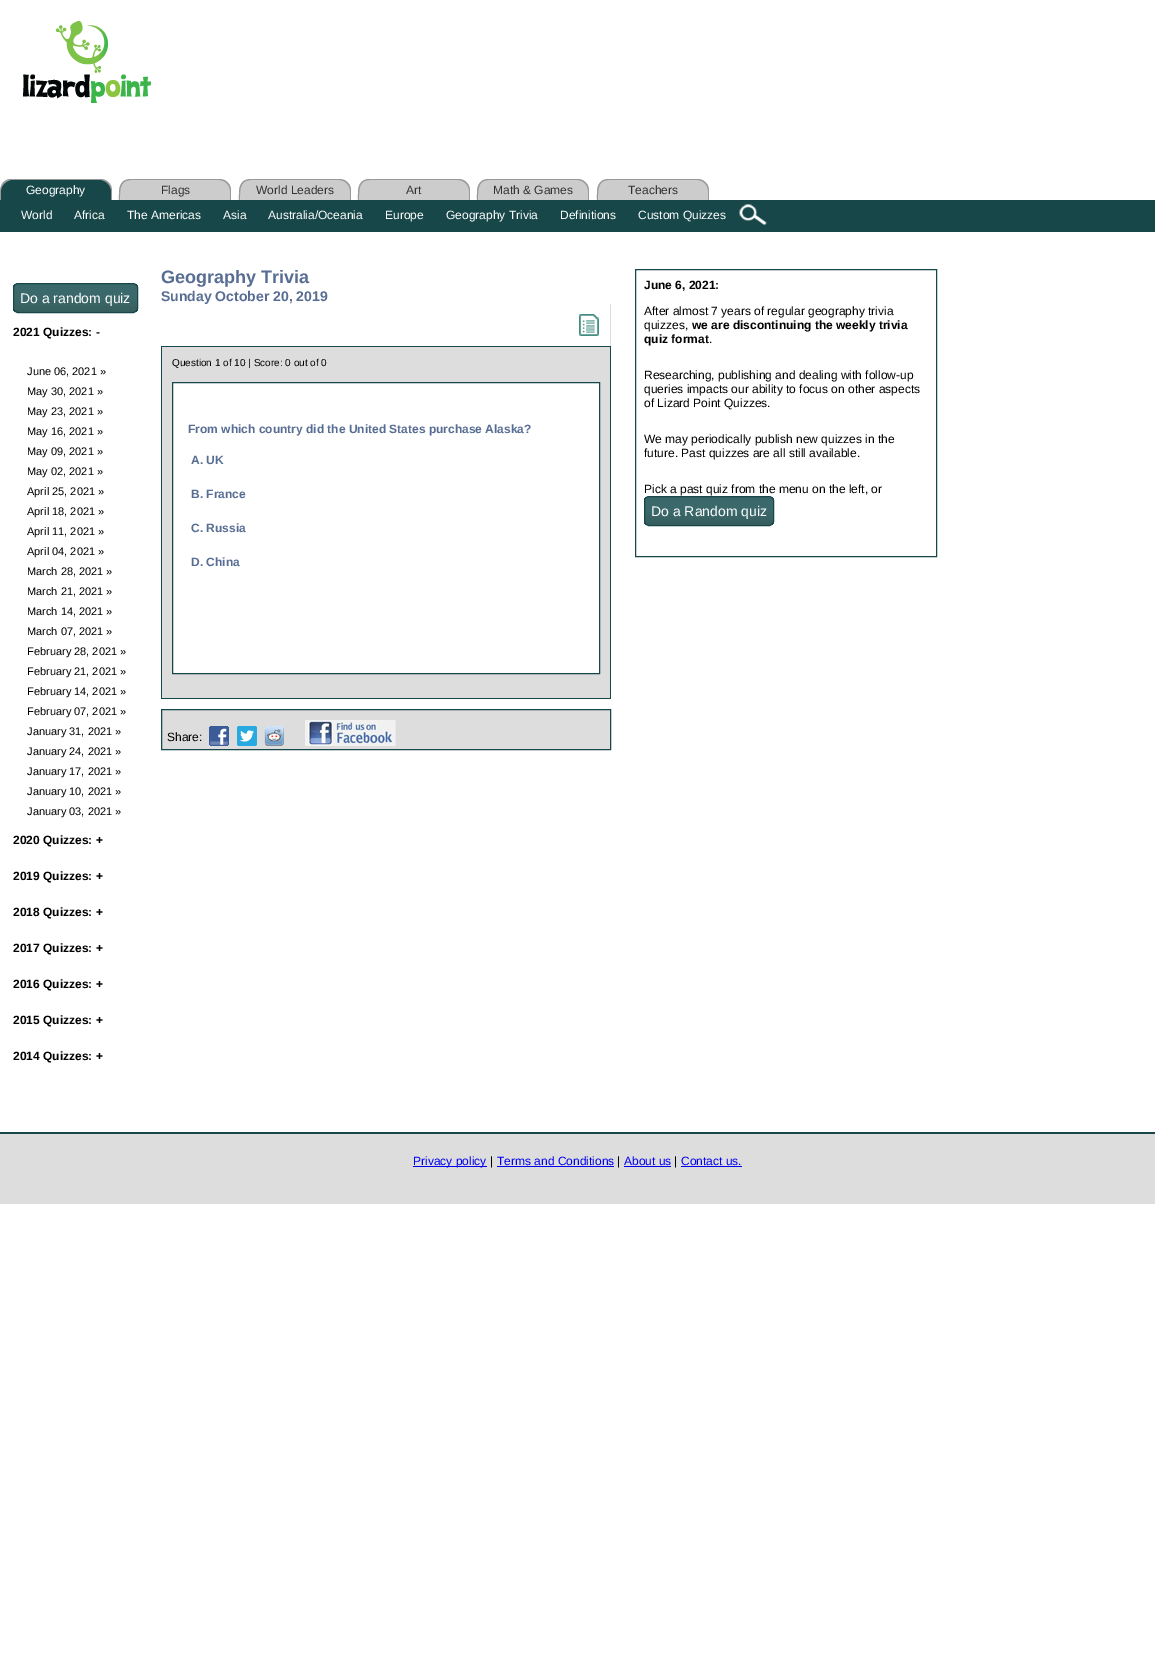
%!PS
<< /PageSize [1155 1675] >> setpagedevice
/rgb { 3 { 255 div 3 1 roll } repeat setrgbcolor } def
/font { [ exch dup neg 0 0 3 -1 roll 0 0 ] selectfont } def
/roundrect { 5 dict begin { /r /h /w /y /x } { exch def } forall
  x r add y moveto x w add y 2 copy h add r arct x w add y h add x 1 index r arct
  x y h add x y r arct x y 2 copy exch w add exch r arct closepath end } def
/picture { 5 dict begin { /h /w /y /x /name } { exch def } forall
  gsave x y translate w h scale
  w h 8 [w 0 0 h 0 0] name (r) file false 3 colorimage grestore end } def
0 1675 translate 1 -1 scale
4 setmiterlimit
255 255 255 rgb
0 0 1155 1675 rectfill
(img/1.rgb) 23 21 128 82 picture
204 204 204 rgb
12 179 moveto 100 179 lineto 106.5 179 112 184.5 112 191 curveto 112 200 lineto 0 200 lineto 0 191 lineto 0 184.5 5.5 179 12 179 curveto closepath fill
153 153 153 rgb
12 179 moveto 100 179 lineto 107 179 112 184 112 191 curveto 112 200 lineto 0 200 lineto 0 191 -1 179 12 179 curveto closepath 12 180 moveto 100 180 lineto 106 180 111 185 111 191 curveto 111 200 lineto 1 200 lineto 1 192 0 180 12 180 curveto closepath eofill
23 71 73 rgb
13 180 moveto 99 180 lineto 105.5 180 111 185.5 111 192 curveto 111 200 lineto 1 200 lineto 1 192 lineto 1 185.5 6.5 180 13 180 curveto closepath fill
204 204 204 rgb
131 179 moveto 219 179 lineto 225.5 179 231 184.5 231 191 curveto 231 200 lineto 119 200 lineto 119 191 lineto 119 184.5 124.5 179 131 179 curveto closepath fill
153 153 153 rgb
131 179 moveto 219 179 lineto 226 179 231 184 231 191 curveto 231 200 lineto 119 200 lineto 119 191 118 179 131 179 curveto closepath 131 180 moveto 219 180 lineto 225 180 230 185 230 191 curveto 230 200 lineto 120 200 lineto 120 192 119 180 131 180 curveto closepath eofill
204 204 204 rgb
251 179 moveto 339 179 lineto 345.5 179 351 184.5 351 191 curveto 351 200 lineto 239 200 lineto 239 191 lineto 239 184.5 244.5 179 251 179 curveto closepath fill
153 153 153 rgb
251 179 moveto 339 179 lineto 346 179 351 184 351 191 curveto 351 200 lineto 239 200 lineto 239 191 238 179 251 179 curveto closepath 251 180 moveto 339 180 lineto 345 180 350 185 350 191 curveto 350 200 lineto 240 200 lineto 240 192 239 180 251 180 curveto closepath eofill
204 204 204 rgb
370 179 moveto 458 179 lineto 464.5 179 470 184.5 470 191 curveto 470 200 lineto 358 200 lineto 358 191 lineto 358 184.5 363.5 179 370 179 curveto closepath fill
153 153 153 rgb
370 179 moveto 458 179 lineto 465 179 470 184 470 191 curveto 470 200 lineto 358 200 lineto 358 191 357 179 370 179 curveto closepath 370 180 moveto 458 180 lineto 464 180 469 185 469 191 curveto 469 200 lineto 359 200 lineto 359 192 358 180 370 180 curveto closepath eofill
204 204 204 rgb
489 179 moveto 577 179 lineto 583.5 179 589 184.5 589 191 curveto 589 200 lineto 477 200 lineto 477 191 lineto 477 184.5 482.5 179 489 179 curveto closepath fill
153 153 153 rgb
489 179 moveto 577 179 lineto 584 179 589 184 589 191 curveto 589 200 lineto 477 200 lineto 477 191 476 179 489 179 curveto closepath 489 180 moveto 577 180 lineto 583 180 588 185 588 191 curveto 588 200 lineto 478 200 lineto 478 192 477 180 489 180 curveto closepath eofill
204 204 204 rgb
609 179 moveto 697 179 lineto 703.5 179 709 184.5 709 191 curveto 709 200 lineto 597 200 lineto 597 191 lineto 597 184.5 602.5 179 609 179 curveto closepath fill
153 153 153 rgb
609 179 moveto 697 179 lineto 704 179 709 184 709 191 curveto 709 200 lineto 597 200 lineto 597 191 596 179 609 179 curveto closepath 609 180 moveto 697 180 lineto 703 180 708 185 708 191 curveto 708 200 lineto 598 200 lineto 598 192 597 180 609 180 curveto closepath eofill
23 71 73 rgb
0 200 1155 32 rectfill
(img/2.rgb) 739 204 28 22 picture
gsave
13 283 125 30 5 roundrect clip newpath
gsave 13 284 moveto 138 284 lineto 138 312 lineto 13 312 lineto closepath clip newpath
<< /ShadingType 2 /ColorSpace /DeviceRGB /Coords [14 284 14 312] /Extend [true true] /Function << /FunctionType 3 /Domain [0 1] /Functions [<< /FunctionType 2 /Domain [0 1] /C0 [0.231 0.408 0.416] /C1 [0.231 0.408 0.416] /N 1 >> << /FunctionType 2 /Domain [0 1] /C0 [0.231 0.408 0.416] /C1 [0.212 0.365 0.369] /N 1 >>] /Bounds [0.51] /Encode [0 1 0 1] >> >> shfill grestore
grestore
13.5 283.5 124 29 4.5 roundrect stroke
221 221 221 rgb
162 304 449 394 rectfill
255 255 255 rgb
162 304 448 42 rectfill
(img/3.rgb) 579 314 20 22 picture
[
  [161 346 450 1 23 71 73]
  [610 346 1 353 23 71 73]
  [161 698 450 1 23 71 73]
  [161 346 1 353 23 71 73]
] { aload pop rgb rectfill } forall
255 255 255 rgb
172.5 382.5 moveto 599.5 382.5 lineto 599.5 673.5 lineto 172.5 673.5 lineto closepath gsave fill grestore
23 71 73 rgb
stroke
221 221 221 rgb
161.5 709.5 moveto 610.5 709.5 lineto 610.5 749.5 lineto 161.5 749.5 lineto closepath gsave fill grestore
23 71 73 rgb
stroke
(img/4.rgb) 209 726 20 20 picture
(img/5.rgb) 237 726 20 20 picture
(img/6.rgb) 264 726 20 20 picture
(img/7.rgb) 305 720 91 26 picture
635.5 269.5 301 287 rectstroke
gsave
644 496 130 30 5 roundrect clip newpath
gsave 644 497 moveto 774 497 lineto 774 525 lineto 644 525 lineto closepath clip newpath
<< /ShadingType 2 /ColorSpace /DeviceRGB /Coords [645 497 645 525] /Extend [true true] /Function << /FunctionType 3 /Domain [0 1] /Functions [<< /FunctionType 2 /Domain [0 1] /C0 [0.231 0.408 0.416] /C1 [0.231 0.408 0.416] /N 1 >> << /FunctionType 2 /Domain [0 1] /C0 [0.231 0.408 0.416] /C1 [0.212 0.365 0.369] /N 1 >>] /Bounds [0.51] /Encode [0 1 0 1] >> >> shfill grestore
grestore
644.5 496.5 129 29 4.5 roundrect stroke
[
  [0 1134 1155 70 221 221 221]
  [0 1132 1155 2 23 71 73]
  [413 1166 74 1 0 0 238]
  [497 1166 117 1 0 0 238]
  [624 1166 47 1 0 0 238]
  [681 1166 61 1 0 0 238]
] { aload pop rgb rectfill } forall
/LiberationSans-Regular 12 font
255 255 255 rgb
26 194 moveto (Geography) show
51 51 51 rgb
[
  [(Flags) 161 194]
  [(World Leaders) 256 194]
  [(Art) 406 194]
  [(Math & Games) 493 194]
  [(Teachers) 628 194]
] { aload pop moveto show } forall
255 255 255 rgb
[
  [(World) 21 219]
  [(Africa) 74 219]
  [(The Americas) 127 219]
  [(Asia) 223 219]
  [(Australia/Oceania) 268 219]
  [(Europe) 385 219]
  [(Geography Trivia) 446 219]
  [(Definitions) 560 219]
  [(Custom Quizzes) 638 219]
] { aload pop moveto show } forall
/LiberationSans-Regular 14 font
20 303 moveto (Do a random quiz) show
/LiberationSans-Bold 12 font
0 0 0 rgb
13 336 moveto (2021 Quizzes: -) show
/LiberationSans-Regular 11 font
[
  [(June 06, 2021 ») 27 375]
  [(May 30, 2021 ») 27 395]
  [(May 23, 2021 ») 27 415]
  [(May 16, 2021 ») 27 435]
  [(May 09, 2021 ») 27 455]
  [(May 02, 2021 ») 27 475]
  [(April 25, 2021 ») 27 495]
  [(April 18, 2021 ») 27 515]
  [(April 11, 2021 ») 27 535]
  [(April 04, 2021 ») 27 555]
  [(March 28, 2021 ») 27 575]
  [(March 21, 2021 ») 27 595]
  [(March 14, 2021 ») 27 615]
  [(March 07, 2021 ») 27 635]
  [(February 28, 2021 ») 27 655]
  [(February 21, 2021 ») 27 675]
  [(February 14, 2021 ») 27 695]
  [(February 07, 2021 ») 27 715]
  [(January 31, 2021 ») 27 735]
  [(January 24, 2021 ») 27 755]
  [(January 17, 2021 ») 27 775]
  [(January 10, 2021 ») 27 795]
  [(January 03, 2021 ») 27 815]
] { aload pop moveto show } forall
/LiberationSans-Bold 12 font
[
  [(2020 Quizzes: +) 13 844]
  [(2019 Quizzes: +) 13 880]
  [(2018 Quizzes: +) 13 916]
  [(2017 Quizzes: +) 13 952]
  [(2016 Quizzes: +) 13 988]
  [(2015 Quizzes: +) 13 1024]
  [(2014 Quizzes: +) 13 1060]
] { aload pop moveto show } forall
/LiberationSans-Bold 18 font
87 109 148 rgb
161 283 moveto (Geography Trivia) show
/LiberationSans-Bold 14 font
161 301 moveto (Sunday October 20, 2019) show
/LiberationSans-Regular 10 font
0 0 0 rgb
172 366 moveto (Question 1 of 10 | Score: 0 out of 0) show
/LiberationSans-Bold 12 font
87 109 148 rgb
[
  [(From which country did the United States purchase Alaska?) 188 433]
  [(A. UK) 191 464]
  [(B. France) 191 498]
  [(C. Russia) 191 532]
  [(D. China) 191 566]
] { aload pop moveto show } forall
/LiberationSans-Regular 12 font
0 0 0 rgb
167 741 moveto (Share:) show
/LiberationSans-Bold 12 font
644 289 moveto (June 6, 2021:) show
/LiberationSans-Regular 12 font
644 315 moveto (After almost 7 years of regular geography trivia) show
644 329 moveto (quizzes,) show
/LiberationSans-Bold 12 font
692 329 moveto (we are discontinuing the weekly trivia) show
644 343 moveto (quiz format) show
/LiberationSans-Regular 12 font
[
  [(.) 709 343]
  [(Researching, publishing and dealing with follow-up) 644 379]
  [(queries impacts our ability to focus on other aspects) 644 393]
  [(of Lizard Point Quizzes.) 644 407]
  [(We may periodically publish new quizzes in the) 644 443]
  [(future. Past quizzes are all still available.) 644 457]
  [(Pick a past quiz from the menu on the left, or) 644 493]
] { aload pop moveto show } forall
/LiberationSans-Regular 14 font
255 255 255 rgb
651 516 moveto (Do a Random quiz) show
/LiberationSans-Regular 12 font
0 0 238 rgb
413 1165 moveto (Privacy policy) show
0 0 0 rgb
490 1165 moveto (|) show
0 0 238 rgb
497 1165 moveto (Terms and Conditions) show
0 0 0 rgb
617 1165 moveto (|) show
0 0 238 rgb
624 1165 moveto (About us) show
0 0 0 rgb
674 1165 moveto (|) show
0 0 238 rgb
681 1165 moveto (Contact us.) show
showpage
